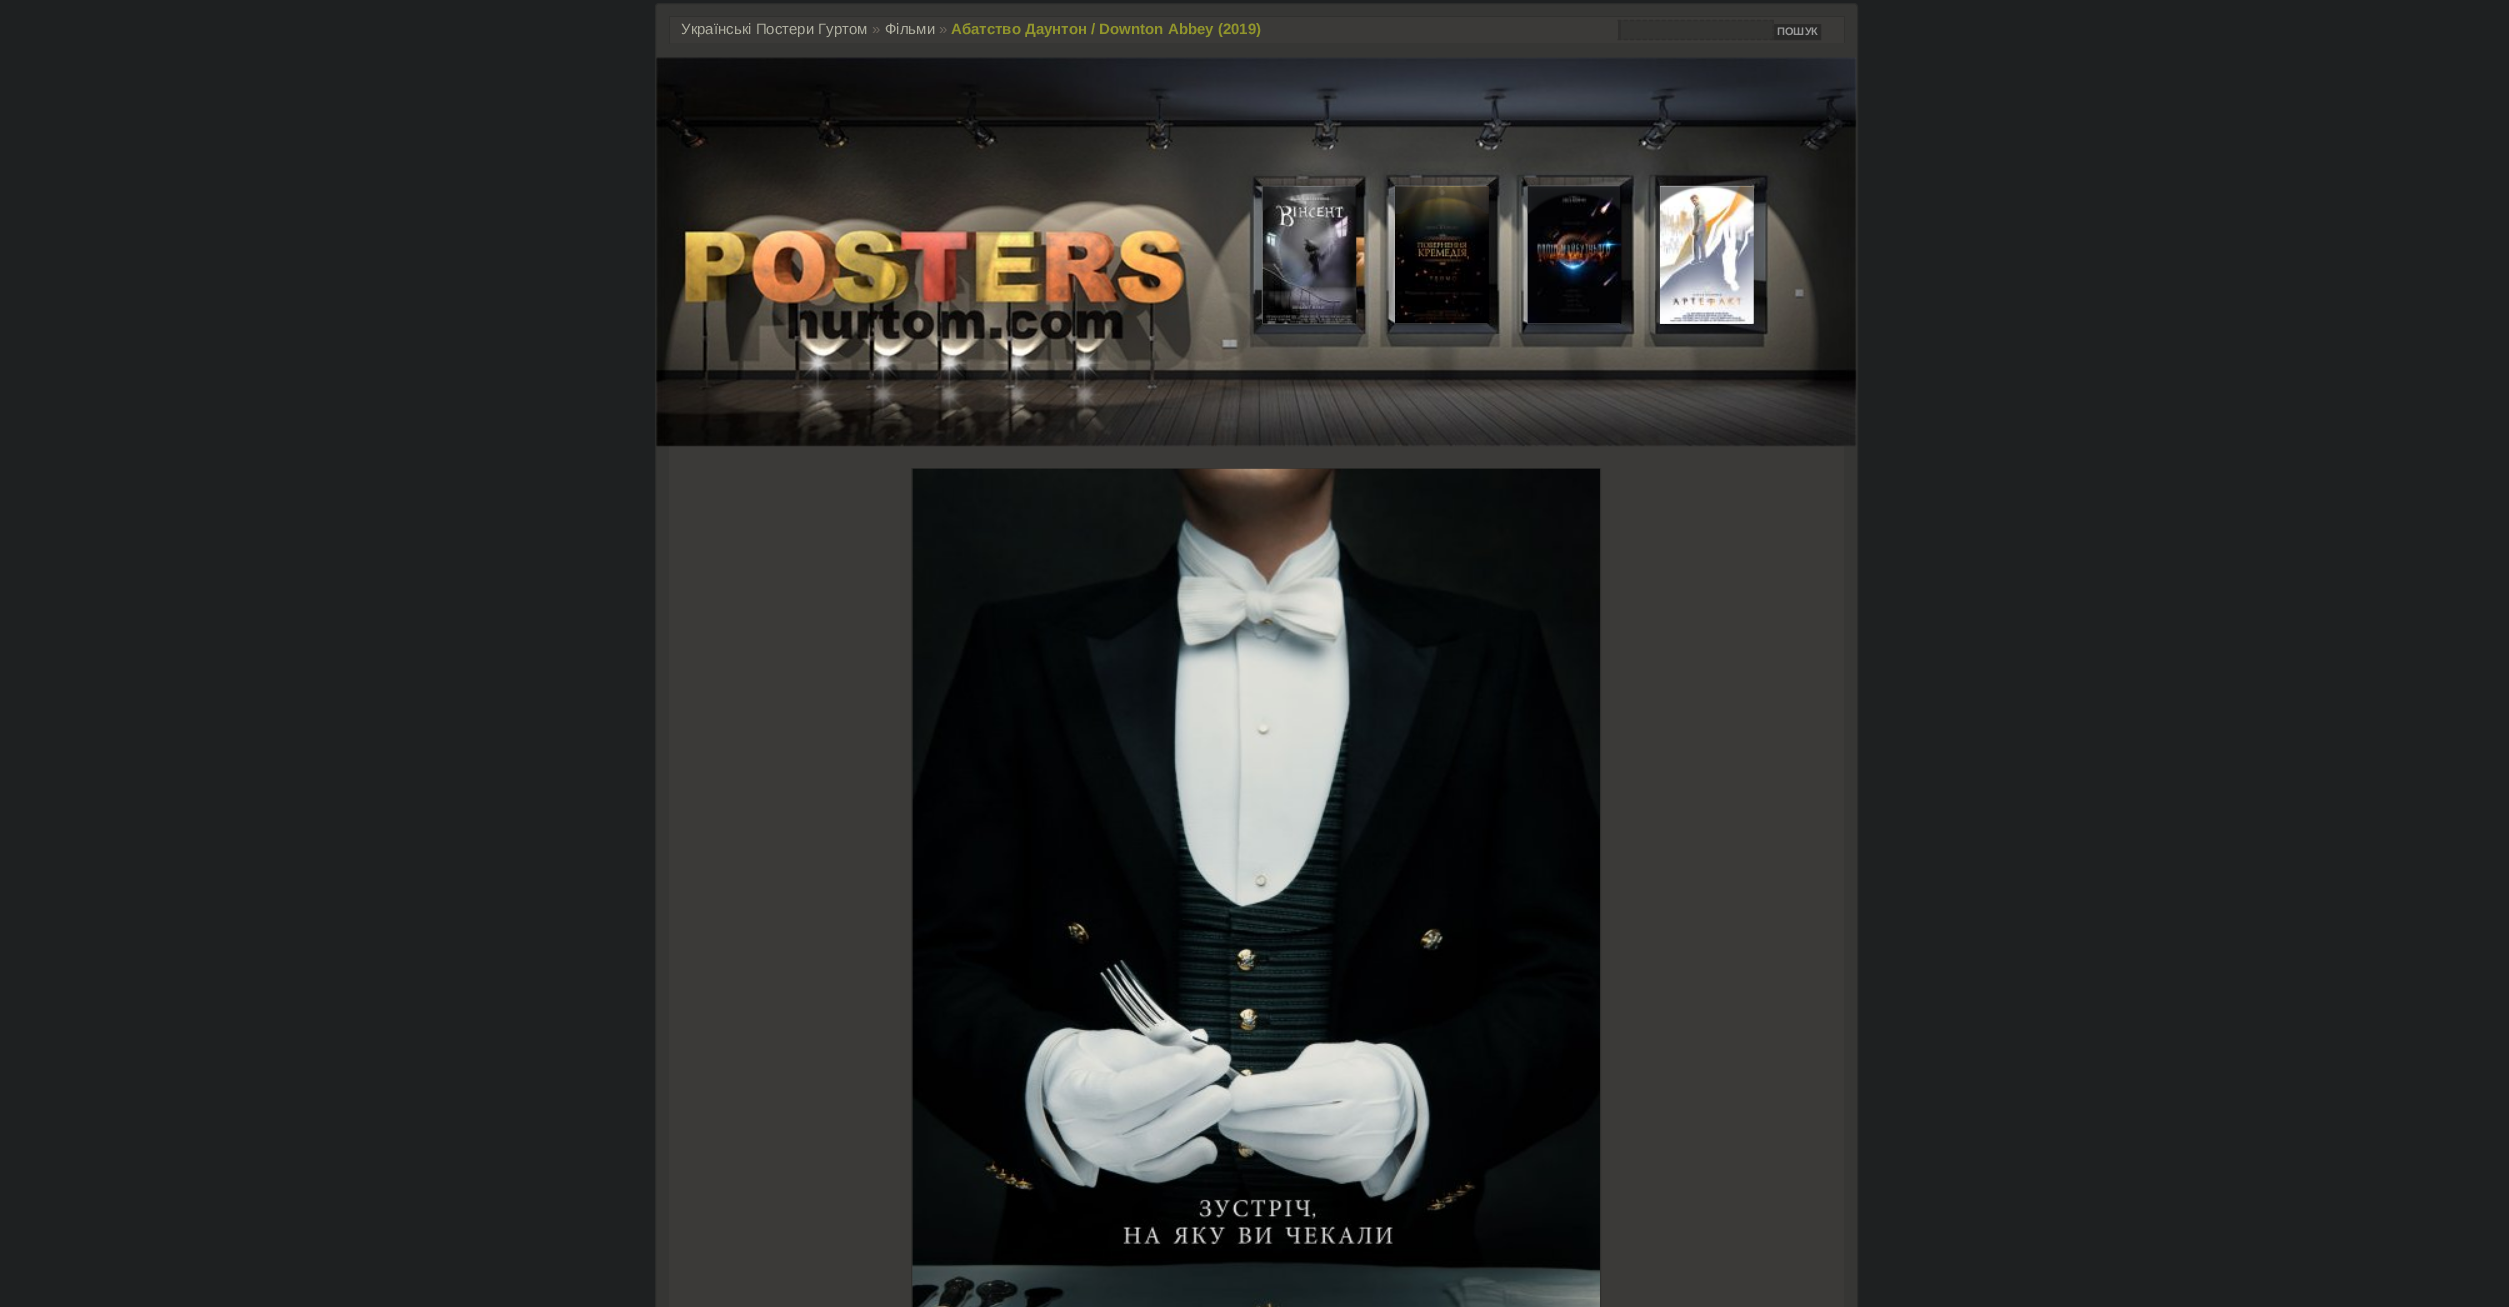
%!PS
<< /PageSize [2509 1307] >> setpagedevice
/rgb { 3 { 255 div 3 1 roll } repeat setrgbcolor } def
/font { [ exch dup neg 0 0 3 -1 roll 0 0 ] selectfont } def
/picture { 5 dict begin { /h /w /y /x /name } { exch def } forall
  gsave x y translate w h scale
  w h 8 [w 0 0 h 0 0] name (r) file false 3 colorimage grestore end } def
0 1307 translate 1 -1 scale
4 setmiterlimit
30 32 33 rgb
0 0 2509 1307 rectfill
54 54 52 rgb
659 3.5 moveto 1854 3.5 lineto 1856 3.5 1857.5 5 1857.5 7 curveto 1857.5 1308 lineto 1857.5 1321.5 1846.5 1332.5 1833 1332.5 curveto 680 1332.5 lineto 666.5 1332.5 655.5 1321.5 655.5 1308 curveto 655.5 7 lineto 655.5 5 657 3.5 659 3.5 curveto closepath gsave fill grestore
43 44 43 rgb
stroke
[
  [670 17 1174 26 59 58 56]
  [669 16 1176 1 48 48 46]
  [1844 16 1 28 48 48 46]
  [1844 43 1 1 56 55 53]
  [669 16 1 28 48 48 46]
  [1621 20 153 20 52 52 50]
] { aload pop rgb rectfill } forall
47 46 45 rgb
1.2 setlinewidth
[3.75 2.6] 0 setdash
1617.5 20.5 moveto 1774 20.5 lineto stroke
[3.75 1.66] 0 setdash
1773 20 moveto 1773 40 lineto stroke
[3.75 2.6] 0 setdash
1617.5 39.5 moveto 1774 39.5 lineto stroke
1618 20 3 20 rectfill
41 41 40 rgb
1774.5 24.5 moveto 1820.5 24.5 lineto 1820.5 39.5 lineto 1774.5 39.5 lineto closepath gsave fill grestore
43 42 41 rgb
1 setlinewidth
[] 0 setdash
stroke
59 58 56 rgb
669 446 1175 861 rectfill
(img/1.rgb) 656 57 1201 390 picture
(img/2.rgb) 1262 186 95 138 picture
(img/3.rgb) 1395 186 94 138 picture
(img/4.rgb) 1527 186 95 138 picture
(img/5.rgb) 1660 186 94 138 picture
(img/6.rgb) 1262 186 492 28 picture
48 48 46 rgb
911.5 468.5 689 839 rectstroke
(img/7.rgb) 912 468 688 839 picture
/LiberationSans-Regular 15 font
176 176 161 rgb
681 34 moveto (Українські Постери Гуртом) show
111 104 96 rgb
872 34 moveto (») show
176 176 161 rgb
885 34 moveto (Фільми) show
111 104 96 rgb
939 34 moveto (») show
/LiberationSans-Bold 15 font
145 149 44 rgb
951 34 moveto (Абатство Даунтон / Downton Abbey \(2019\)) show
/LiberationSans-Bold 11 font
153 153 153 rgb
1777 35 moveto (ПОШУК) show
showpage
